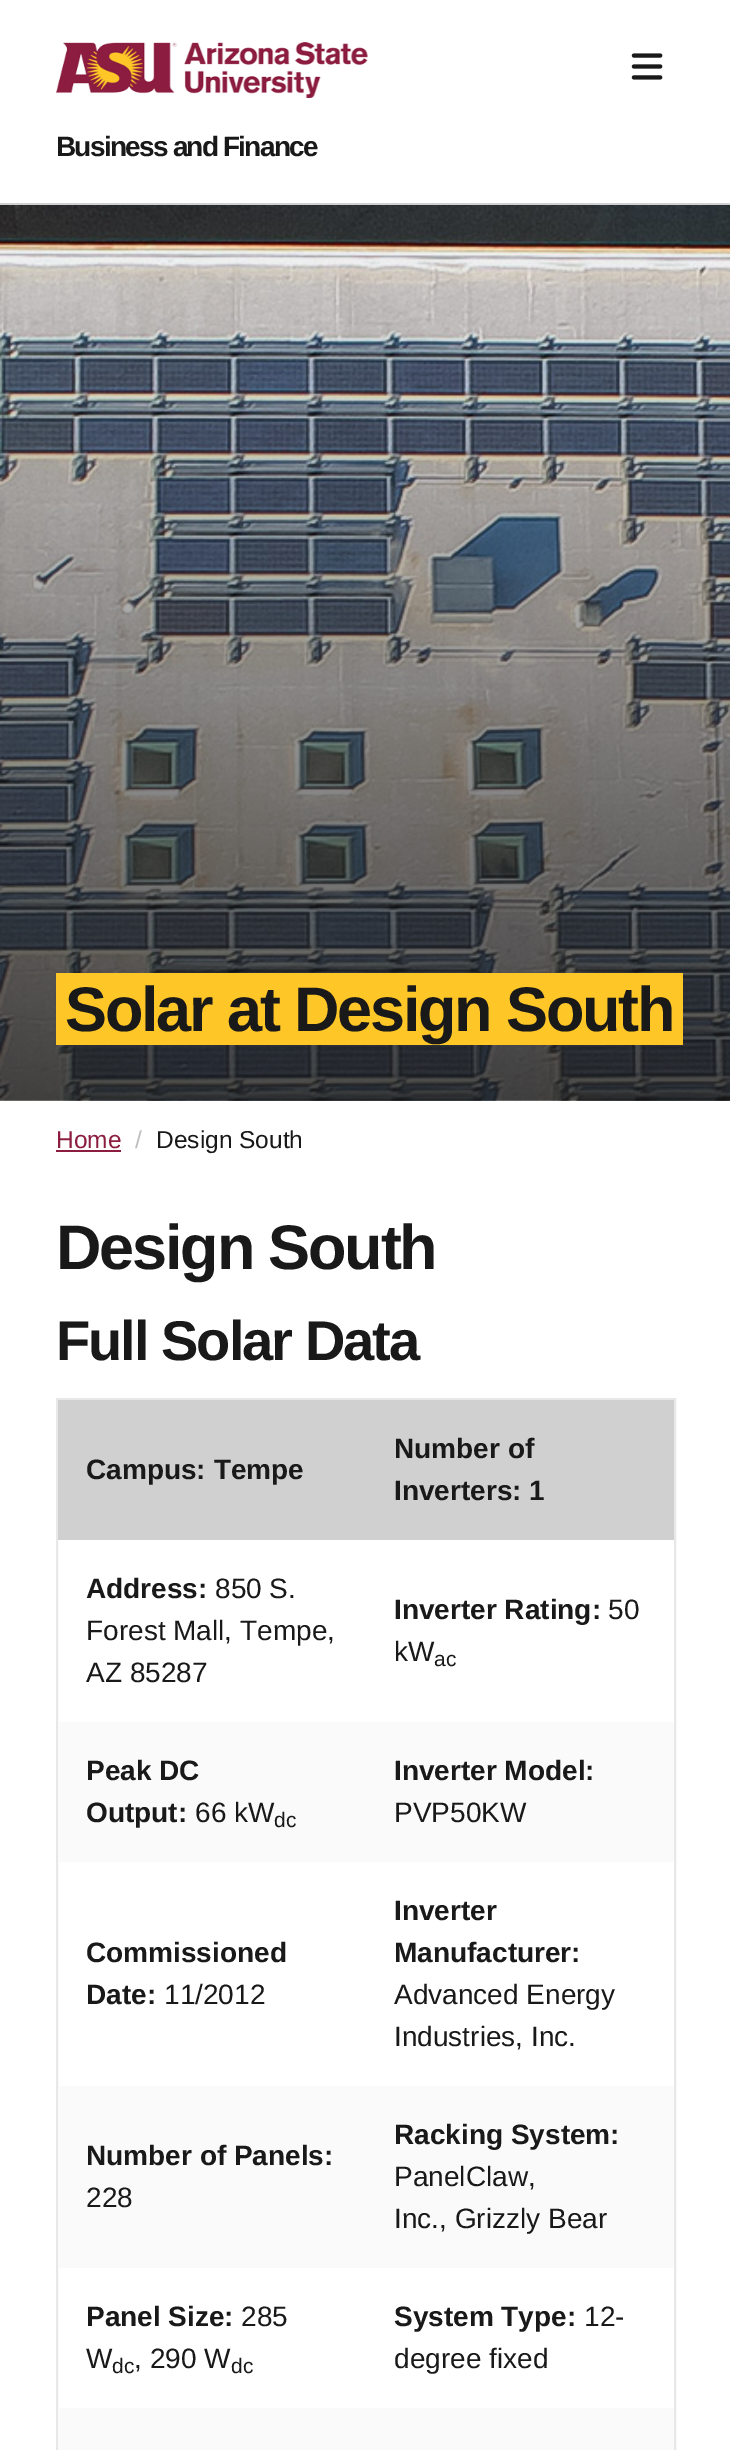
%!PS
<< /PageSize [730 2450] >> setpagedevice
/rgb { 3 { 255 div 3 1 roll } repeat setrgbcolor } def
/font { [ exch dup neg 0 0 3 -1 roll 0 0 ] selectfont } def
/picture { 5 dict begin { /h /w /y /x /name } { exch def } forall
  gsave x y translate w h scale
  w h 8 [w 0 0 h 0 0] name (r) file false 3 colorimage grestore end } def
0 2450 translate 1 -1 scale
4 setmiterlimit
255 255 255 rgb
0 0 730 2450 rectfill
208 208 208 rgb
0 203 730 2 rectfill
(img/1.rgb) 56 42 312 56 picture
(img/2.rgb) 631 53 32 27 picture
(img/3.rgb) 0 205 730 896 picture
255 198 39 rgb
74 1045 moveto 683 1045 lineto 683 973 lineto 674 973 lineto 674 1045 lineto closepath fill
56 973 moveto 56 1045 lineto 665 1045 lineto 65 1045 lineto 65 973 lineto closepath fill
65 973 609 72 rectfill
140 29 64 rgb
56 1150 65 2 rectfill
232 232 232 rgb
2 setlinewidth
57 1399 618 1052 rectstroke
[
  [58 1400 616 140 208 208 208]
  [58 1722 616 140 250 250 250]
  [58 2086 616 182 250 250 250]
  [58 2408 616 42 250 250 250]
] { aload pop rgb rectfill } forall
/LiberationSans-Bold 28 font
25 25 25 rgb
56 156 moveto -1.75 0 (Business and Finance) ashow
/LiberationSans-Bold 63 font
65 1031 moveto -2.2 0 (Solar at Design South) ashow
/LiberationSans-Regular 24.5 font
140 29 64 rgb
56 1148 moveto (Home) show
191 191 191 rgb
135 1148 moveto (/) show
25 25 25 rgb
156 1148 moveto (Design South) show
/LiberationSans-Bold 63 font
56 1269 moveto -2.2 0 (Design South) ashow
/LiberationSans-Bold 56 font
56 1360 moveto -2 0 (Full Solar Data) ashow
/LiberationSans-Bold 28 font
[
  [(Campus: Tempe) 86 1479]
  [(Number of) 394 1458]
  [(Inverters: 1) 394 1500]
  [(Address:) 86 1598]
] { aload pop moveto show } forall
/LiberationSans-Regular 28 font
[
  [(850 S.) 215 1598]
  [(Forest Mall, Tempe,) 86 1640]
  [(AZ 85287) 86 1682]
] { aload pop moveto show } forall
/LiberationSans-Bold 28 font
394 1619 moveto (Inverter Rating:) show
/LiberationSans-Regular 28 font
608 1619 moveto (50) show
394 1661 moveto (kW) show
/LiberationSans-Regular 21 font
434 1666 moveto (ac) show
/LiberationSans-Bold 28 font
86 1780 moveto (Peak DC) show
86 1822 moveto (Output:) show
/LiberationSans-Regular 28 font
195 1822 moveto (66 kW) show
/LiberationSans-Regular 21 font
274 1827 moveto (dc) show
/LiberationSans-Bold 28 font
394 1780 moveto (Inverter Model:) show
/LiberationSans-Regular 28 font
394 1822 moveto (PVP50KW) show
/LiberationSans-Bold 28 font
86 1962 moveto (Commissioned) show
86 2004 moveto (Date:) show
/LiberationSans-Regular 28 font
164 2004 moveto (11/2012) show
/LiberationSans-Bold 28 font
394 1920 moveto (Inverter) show
394 1962 moveto (Manufacturer:) show
/LiberationSans-Regular 28 font
394 2004 moveto (Advanced Energy) show
394 2046 moveto (Industries, Inc.) show
/LiberationSans-Bold 28 font
86 2165 moveto (Number of Panels:) show
/LiberationSans-Regular 28 font
86 2207 moveto (228) show
/LiberationSans-Bold 28 font
394 2144 moveto (Racking System:) show
/LiberationSans-Regular 28 font
394 2186 moveto (PanelClaw,) show
394 2228 moveto (Inc., Grizzly Bear) show
/LiberationSans-Bold 28 font
86 2326 moveto (Panel Size:) show
/LiberationSans-Regular 28 font
241 2326 moveto (285) show
86 2368 moveto (W) show
/LiberationSans-Regular 21 font
112 2373 moveto (dc) show
/LiberationSans-Regular 28 font
134 2368 moveto (, 290 W) show
/LiberationSans-Regular 21 font
231 2373 moveto (dc) show
/LiberationSans-Bold 28 font
394 2326 moveto (System Type:) show
/LiberationSans-Regular 28 font
584 2326 moveto (12-) show
394 2368 moveto (degree fixed) show
showpage
